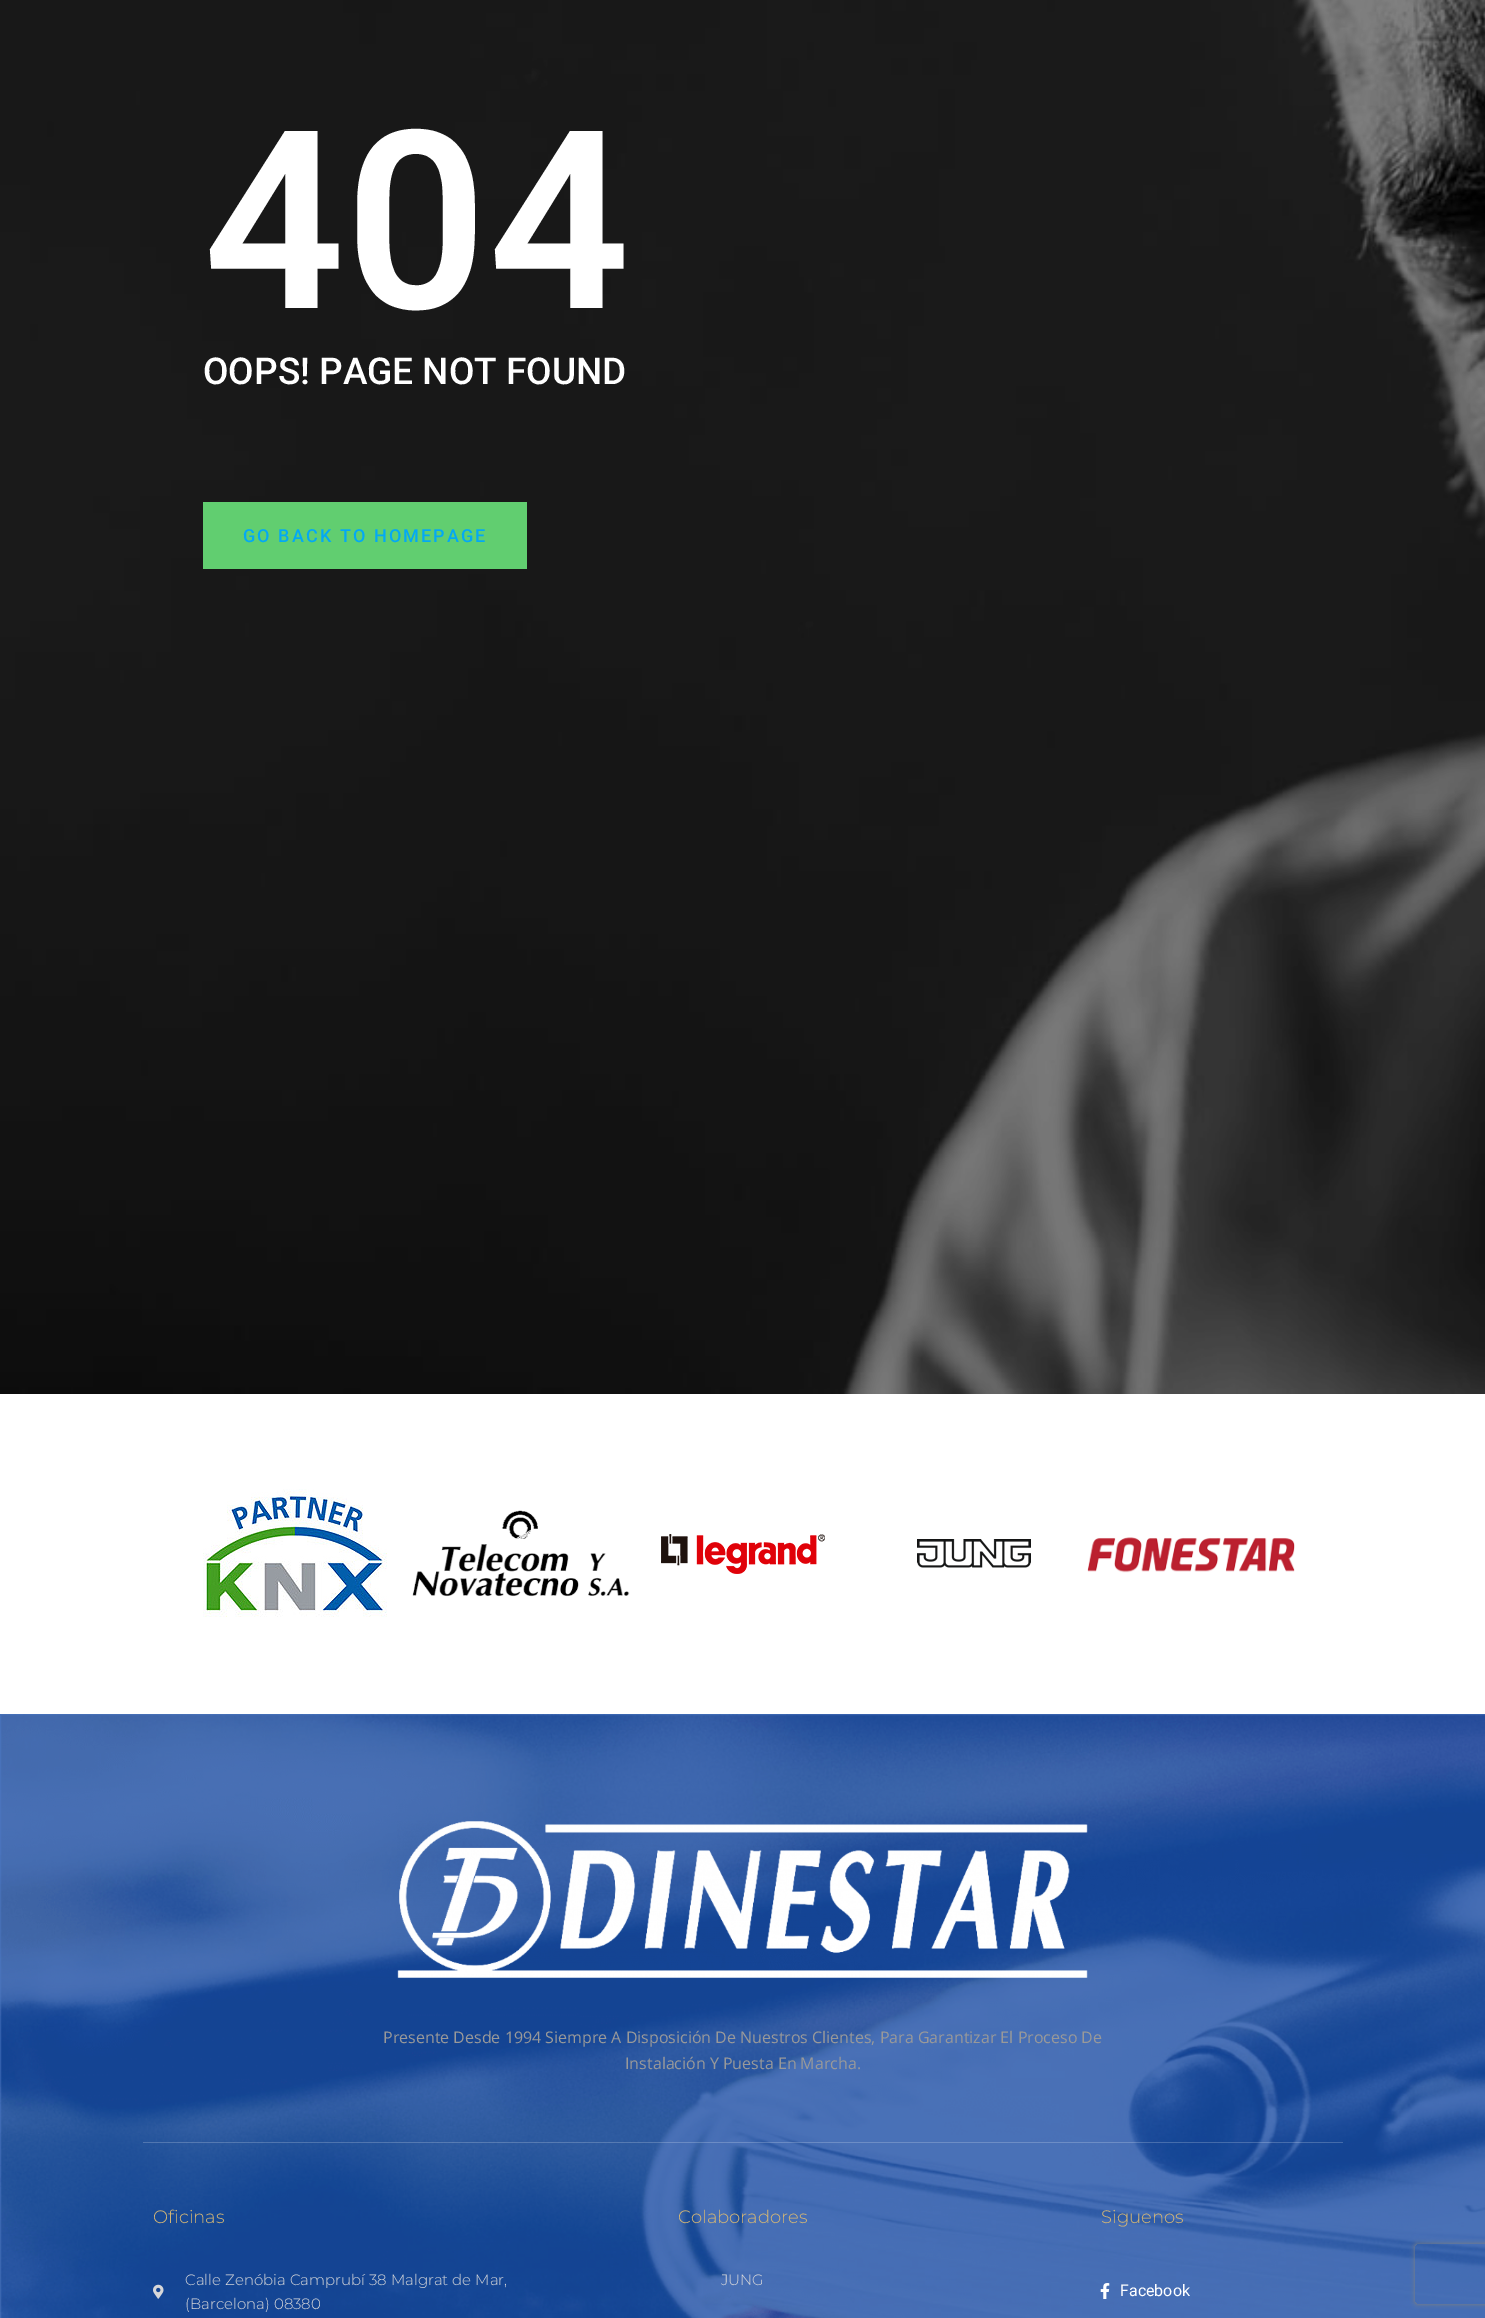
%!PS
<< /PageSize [1485 2318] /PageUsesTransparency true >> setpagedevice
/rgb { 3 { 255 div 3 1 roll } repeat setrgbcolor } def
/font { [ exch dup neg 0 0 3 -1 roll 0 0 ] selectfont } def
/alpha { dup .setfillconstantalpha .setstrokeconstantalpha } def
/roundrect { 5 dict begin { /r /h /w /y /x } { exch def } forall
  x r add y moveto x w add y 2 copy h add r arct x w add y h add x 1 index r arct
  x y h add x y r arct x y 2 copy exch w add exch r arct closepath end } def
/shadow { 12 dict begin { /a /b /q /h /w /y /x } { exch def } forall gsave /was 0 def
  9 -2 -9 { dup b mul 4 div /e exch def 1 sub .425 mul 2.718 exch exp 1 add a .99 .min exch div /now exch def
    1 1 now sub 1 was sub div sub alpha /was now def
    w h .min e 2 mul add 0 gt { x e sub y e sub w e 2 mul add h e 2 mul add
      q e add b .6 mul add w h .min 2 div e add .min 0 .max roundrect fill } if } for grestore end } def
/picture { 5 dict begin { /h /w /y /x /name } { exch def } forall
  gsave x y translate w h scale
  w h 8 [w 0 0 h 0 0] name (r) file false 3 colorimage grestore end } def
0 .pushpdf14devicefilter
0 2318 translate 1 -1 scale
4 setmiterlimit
255 255 255 rgb
0 0 1485 2318 rectfill
76 119 193 rgb
0 1714 1485 604 rectfill
(img/1.rgb) 0 0 1485 1394 picture
97 206 112 rgb
203 502 324 67 rectfill
(img/2.rgb) 203 1489 184 128 picture
(img/3.rgb) 412 1510 218 87 picture
(img/4.rgb) 661 1534 164 40 picture
(img/5.rgb) 917 1539 114 29 picture
(img/6.rgb) 1087 1537 208 36 picture
(img/7.rgb) 0 1714 1485 604 picture
0.2 alpha
255 255 255 rgb
143 2142 1200 1 rectfill
1 alpha
(img/8.rgb) 397 1821 691 157 picture
(img/9.rgb) 153 2284 11 15 picture
(img/10.rgb) 1100 2283 10 16 picture
gsave
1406 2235 moveto 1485 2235 lineto 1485 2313 lineto 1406 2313 lineto closepath 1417 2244 moveto 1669 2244 lineto 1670 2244 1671 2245 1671 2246 curveto 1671 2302 lineto 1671 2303 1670 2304 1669 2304 curveto 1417 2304 lineto 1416 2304 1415 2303 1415 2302 curveto 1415 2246 lineto 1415 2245 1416 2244 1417 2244 curveto closepath eoclip newpath
128 128 128 rgb
1415 2244 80 60 2 2.5 1 shadow
grestore
/Roboto-SemiBold 249 font
203 308 moveto (404) show
/Roboto-Medium 37 font
203 384 moveto (OOPS! PAGE NOT FOUND) show
/Roboto-Medium 18 font
3 169 244 rgb
243 542 moveto 2.1 0 (GO BACK TO HOMEPAGE) ashow
/OpenSans-Regular 16 font
153 153 153 rgb
383 2043 moveto (Presente Desde 1994 Siempre A Disposición De Nuestros Clientes, Para Garantizar El Proceso De) show
625 2069 moveto (Instalación Y Puesta En Marcha.) show
/Montserrat-Light 18 font
211 181 116 rgb
153 2223 moveto (Oficinas) show
/Montserrat-Light 15 font
215 215 217 rgb
185 2285 moveto (Calle Zenóbia Camprubí 38 Malgrat de Mar,) show
185 2309 moveto (\(Barcelona\) 08380) show
/Montserrat-Light 18 font
211 181 116 rgb
678 2223 moveto (Colaboradores) show
/Montserrat-Light 15 font
215 215 217 rgb
721 2285 moveto (JUNG) show
/Montserrat-Light 18 font
211 181 116 rgb
1101 2223 moveto (Siguenos) show
/Roboto-Regular 16 font
255 255 255 rgb
1120 2296 moveto (Facebook) show
.poppdf14devicefilter showpage
